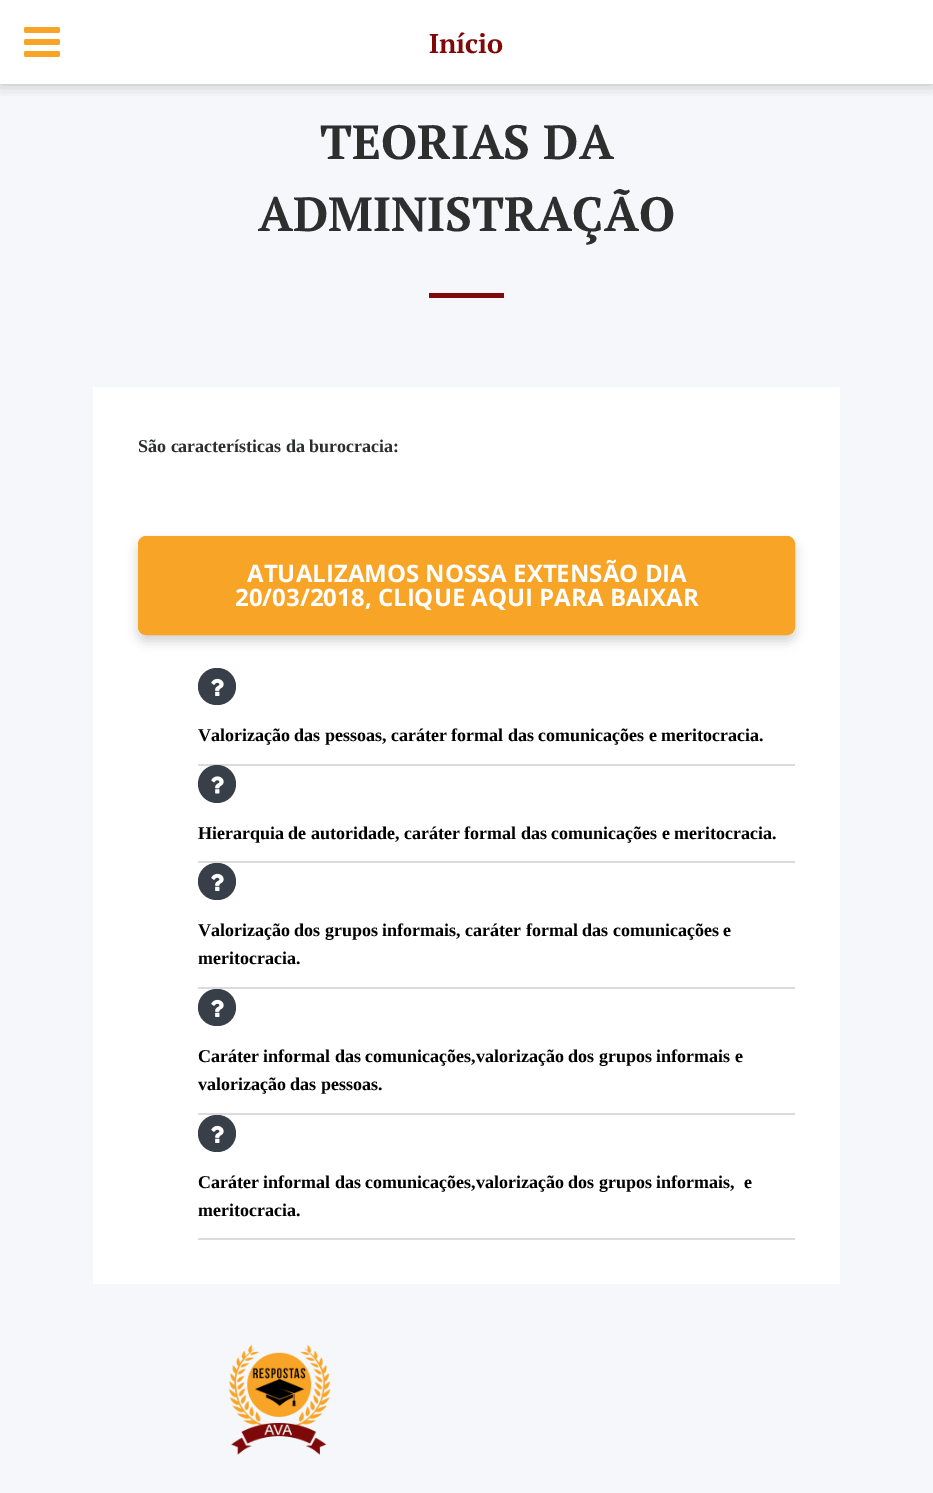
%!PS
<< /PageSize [933 1493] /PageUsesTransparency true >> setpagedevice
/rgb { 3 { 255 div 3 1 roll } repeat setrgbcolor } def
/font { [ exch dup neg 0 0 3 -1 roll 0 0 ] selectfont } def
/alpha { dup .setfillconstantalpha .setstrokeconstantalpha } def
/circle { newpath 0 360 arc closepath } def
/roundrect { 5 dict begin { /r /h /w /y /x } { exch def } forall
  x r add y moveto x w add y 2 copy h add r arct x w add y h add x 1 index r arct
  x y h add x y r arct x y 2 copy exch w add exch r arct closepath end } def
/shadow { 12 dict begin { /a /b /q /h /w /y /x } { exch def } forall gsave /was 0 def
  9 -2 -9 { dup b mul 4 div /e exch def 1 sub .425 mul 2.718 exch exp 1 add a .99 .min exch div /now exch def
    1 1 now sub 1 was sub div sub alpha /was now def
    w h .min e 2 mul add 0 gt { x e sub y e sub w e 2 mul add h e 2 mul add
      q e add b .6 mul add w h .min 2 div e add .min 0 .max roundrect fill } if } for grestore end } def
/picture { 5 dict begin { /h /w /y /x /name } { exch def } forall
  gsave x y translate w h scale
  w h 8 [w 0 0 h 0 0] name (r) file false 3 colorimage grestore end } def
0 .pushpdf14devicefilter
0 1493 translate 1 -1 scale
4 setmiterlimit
245 247 250 rgb
0 0 933 1493 rectfill
255 255 255 rgb
0 0 933 84 rectfill
gsave
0 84 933 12 rectclip
67 67 69 rgb
0 0 933 84 0 7.5 0.35 shadow
grestore
(img/1.rgb) 24 27 36 30 picture
127 9 9 rgb
429 293 75 5 rectfill
255 255 255 rgb
93 387 747 897 rectfill
0 0 0 rgb
138 542 657 99 8 6 0.18 shadow
248 164 39 rgb
139.5 537.5 654 96 6.5 roundrect gsave fill grestore
3 setlinewidth
stroke
219 219 219 rgb
198 764 597 2 rectfill
56 63 72 rgb
198 668 38 37 18.5 roundrect fill
(img/2.rgb) 211 678 13 18 picture
219 219 219 rgb
198 861 597 2 rectfill
56 63 72 rgb
217 784 19 circle fill
(img/3.rgb) 211 776 13 18 picture
219 219 219 rgb
198 987 597 2 rectfill
56 63 72 rgb
198 863 38 37 18.5 roundrect fill
(img/2.rgb) 211 873 13 18 picture
219 219 219 rgb
198 1113 597 2 rectfill
56 63 72 rgb
198 989 38 37 18.5 roundrect fill
(img/2.rgb) 211 999 13 18 picture
219 219 219 rgb
198 1238 597 2 rectfill
56 63 72 rgb
198 1115 38 37 18.5 roundrect fill
(img/2.rgb) 211 1125 13 18 picture
(img/4.rgb) 228 1344 103 111 picture
/PTSerif-Bold 27 font
127 9 9 rgb
429 53 moveto (Início) show
/PTSerif-Bold 48 font
45 46 46 rgb
320 159 moveto (TEORIAS DA) show
258 231 moveto (ADMINISTRAÇÃO) show
/LiberationSerif-Bold 18 font
138 452 moveto (São características da burocracia:) show
/OpenSans-Bold 24 font
255 255 255 rgb
247 582 moveto (ATUALIZAMOS NOSSA EXTENSÃO DIA) show
235 606 moveto (20/03/2018, CLIQUE AQUI PARA BAIXAR) show
/LiberationSerif-Bold 18 font
0 0 0 rgb
[
  [(Valorização das pessoas, caráter formal das comunicações e meritocracia.) 198 741]
  [(Hierarquia de autoridade, caráter formal das comunicações e meritocracia.) 198 839]
  [(Valorização dos grupos informais, caráter formal das comunicações e) 198 936]
  [(meritocracia.) 198 964]
  [(Caráter informal das comunicações,valorização dos grupos informais e) 198 1062]
  [(valorização das pessoas.) 198 1090]
  [(Caráter informal das comunicações,valorização dos grupos informais,  e) 198 1188]
  [(meritocracia.) 198 1216]
] { aload pop moveto show } forall
.poppdf14devicefilter showpage
